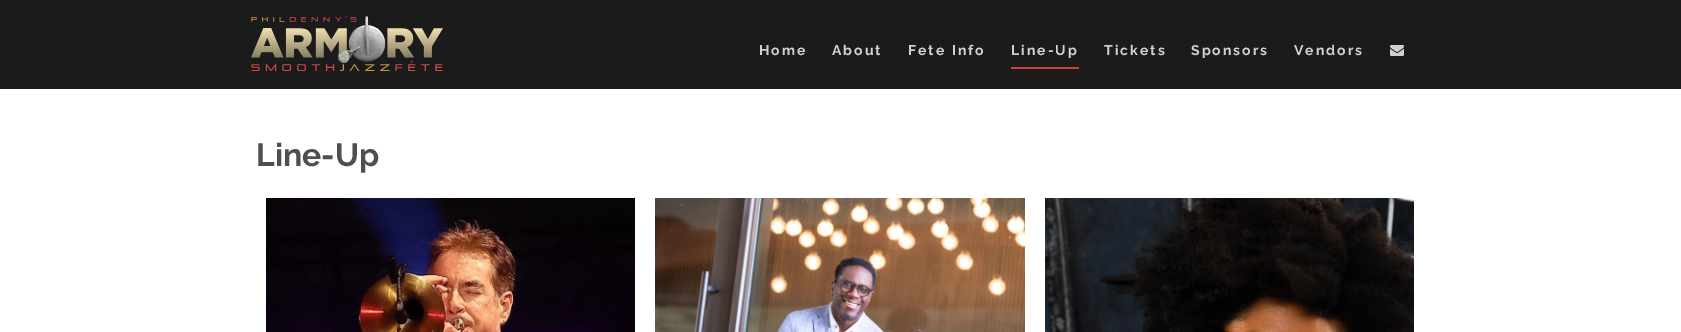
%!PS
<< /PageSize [1681 332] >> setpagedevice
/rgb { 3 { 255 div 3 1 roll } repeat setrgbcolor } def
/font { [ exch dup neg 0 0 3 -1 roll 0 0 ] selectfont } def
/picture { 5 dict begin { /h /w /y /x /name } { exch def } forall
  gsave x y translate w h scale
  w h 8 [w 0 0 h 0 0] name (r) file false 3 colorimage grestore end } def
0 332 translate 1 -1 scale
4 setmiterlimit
255 255 255 rgb
0 0 1681 332 rectfill
27 27 27 rgb
0 0 1681 89 rectfill
(img/1.rgb) 251 16 192 55 picture
206 67 53 rgb
1011 67 68 2 rectfill
(img/2.rgb) 1390 45 14 11 picture
(img/3.rgb) 266 198 369 134 picture
(img/4.rgb) 655 198 370 134 picture
(img/5.rgb) 1045 198 369 134 picture
/Raleway-Bold 14 font
209 209 209 rgb
759 55 moveto 2 0 (Home) ashow
832 55 moveto 2 0 (About) ashow
908 55 moveto 2 0 (Fete Info) ashow
1011 55 moveto 2 0 (Line-Up) ashow
1104 55 moveto 2 0 (Tickets) ashow
1191 55 moveto 2 0 (Sponsors) ashow
1294 55 moveto 2 0 (Vendors) ashow
/Raleway-Bold 32 font
77 80 81 rgb
256 166 moveto (Line-Up) show
showpage
